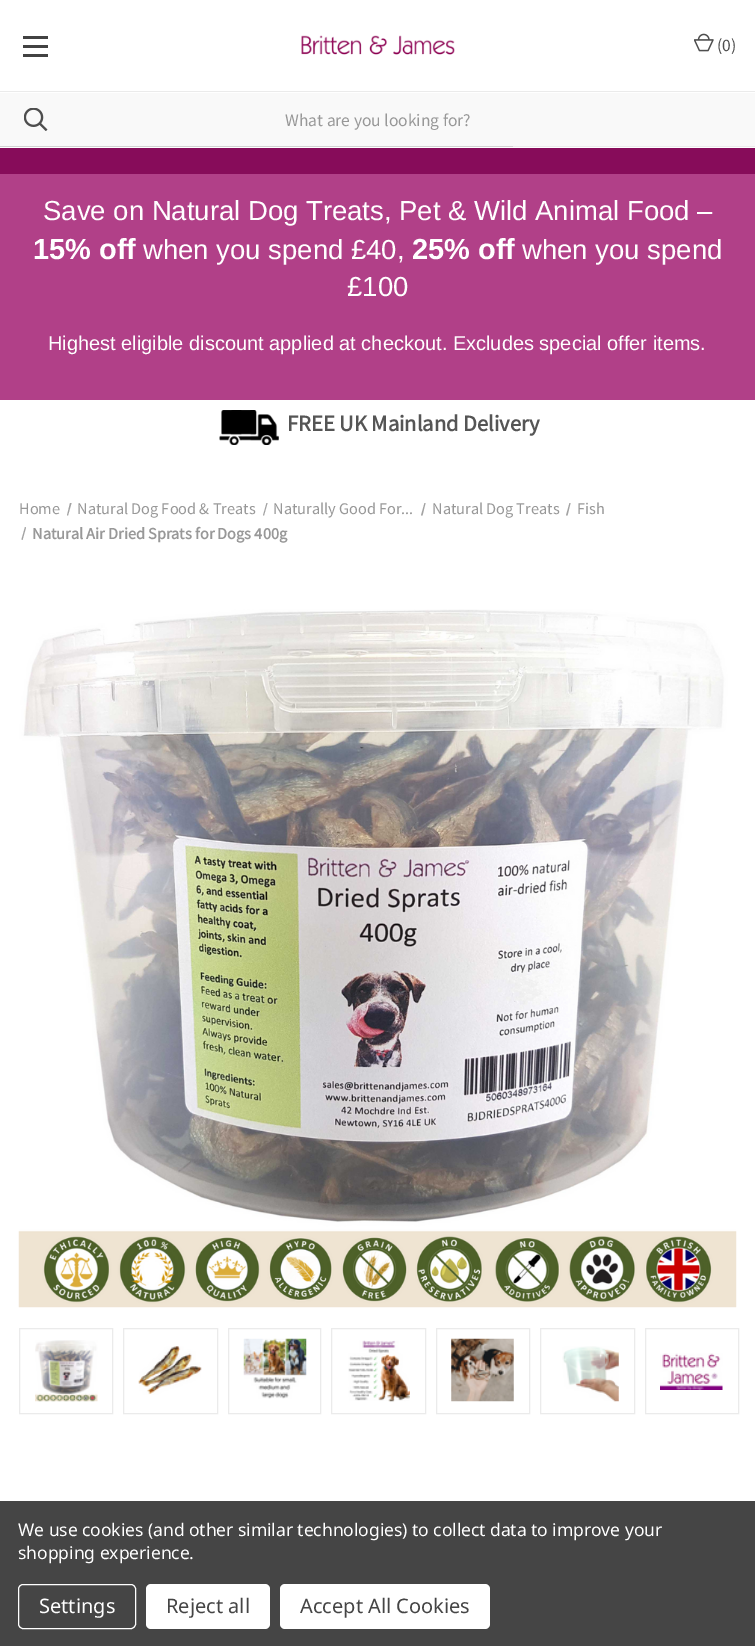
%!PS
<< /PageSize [755 1646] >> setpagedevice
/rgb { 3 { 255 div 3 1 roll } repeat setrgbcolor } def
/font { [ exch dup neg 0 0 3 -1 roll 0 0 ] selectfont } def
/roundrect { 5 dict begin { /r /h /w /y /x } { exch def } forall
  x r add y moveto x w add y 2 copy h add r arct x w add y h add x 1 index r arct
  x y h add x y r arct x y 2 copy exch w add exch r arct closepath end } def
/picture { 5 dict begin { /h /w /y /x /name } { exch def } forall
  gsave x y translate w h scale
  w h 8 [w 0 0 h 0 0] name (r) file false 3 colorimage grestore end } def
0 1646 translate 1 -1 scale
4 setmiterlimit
255 255 255 rgb
0 0 755 1646 rectfill
[
  [513 146 242 1 235 235 235]
  [23 45 25 3 66 66 66]
  [23 36 25 3 66 66 66]
  [23 54 25 3 66 66 66]
] { aload pop rgb rectfill } forall
(img/1.rgb) 301 35 154 20 picture
(img/2.rgb) 694 33 20 19 picture
249 249 249 rgb
0 93 755 53 rectfill
(img/3.rgb) 24 108 24 23 picture
[
  [0 91 755 1 235 235 235]
  [0 146 513 1 210 210 210]
  [0 148 755 26 135 12 90]
  [0 174 755 226 177 64 136]
] { aload pop rgb rectfill } forall
(img/4.rgb) 219 410 60 35 picture
163 163 163 rgb
70 503 moveto 71.5 503 lineto 68 515.5 lineto 67 515.5 lineto closepath fill
266.5 503 moveto 267.5 503 lineto 264 515.5 lineto 263 515.5 lineto closepath fill
424.5 503 moveto 425.5 503 lineto 422.5 515.5 lineto 421 515.5 lineto closepath fill
569.5 503 moveto 570.5 503 lineto 567.5 515.5 lineto 566 515.5 lineto closepath fill
25 527 moveto 26 527.5 lineto 22.5 540 lineto 21.5 539.5 lineto closepath fill
(img/5.rgb) 18 609 719 699 picture
235 235 235 rgb
19.5 1328.5 93 85 rectstroke
(img/6.rgb) 35 1340 63 62 picture
123.5 1328.5 94 85 rectstroke
(img/7.rgb) 138 1346 64 49 picture
228.5 1328.5 92 85 rectstroke
(img/8.rgb) 243 1338 64 61 picture
331.5 1328.5 94 85 rectstroke
(img/9.rgb) 348 1340 62 62 picture
436.5 1328.5 93 85 rectstroke
(img/10.rgb) 451 1338 63 64 picture
540.5 1328.5 94 85 rectstroke
(img/11.rgb) 562 1346 57 56 picture
645.5 1328.5 93 85 rectstroke
(img/12.rgb) 660 1353 63 37 picture
69 69 69 rgb
0 1501 755 145 rectfill
255 255 255 rgb
18.5 1584.5 117 44 4.5 roundrect stroke
146 1584 124 45 5 roundrect fill
280 1584 210 45 5 roundrect fill
/SourceSansPro-Regular 17.5 font
78 78 78 rgb
717 51 moveto (\(0\)) show
152 152 152 rgb
285 126 moveto (What are you looking for?) show
/LiberationSans-Regular 27.5 font
255 255 255 rgb
43 220 moveto (Save on Natural Dog Treats, Pet & Wild Animal Food –) show
/LiberationSans-Bold 29 font
33 259 moveto (15% off) show
/LiberationSans-Regular 27.5 font
143 259 moveto (when you spend £40,) show
/LiberationSans-Bold 29 font
412 259 moveto (25% off) show
/LiberationSans-Regular 27.5 font
522 259 moveto (when you spend) show
347 296 moveto (£100) show
/LiberationSans-Regular 20 font
48 350 moveto (Highest eligible discount applied at checkout. Excludes special offer items.) show
/SourceSansPro-Bold 22.5 font
85 85 85 rgb
287 431 moveto (FREE UK Mainland Delivery) show
/SourceSansPro-Regular 16.25 font
152 152 152 rgb
[
  [(Home) 19 514]
  [(Natural Dog Food & Treats) 77 514]
  [(Naturally Good For...) 273 514]
  [(Natural Dog Treats) 432 514]
  [(Fish) 577 514]
] { aload pop moveto show } forall
/SourceSansPro-Bold 16.25 font
32 539 moveto (Natural Air Dried Sprats for Dogs 400g) show
/NotoSans-Regular 17.5 font
255 255 255 rgb
18 1536 moveto -0.05 0 (We use cookies \(and other similar technologies\) to collect data to improve your) ashow
18 1559 moveto -0.05 0 (shopping experience.) ashow
/NotoSans-Regular 20 font
39 1613 moveto (Settings) show
69 69 69 rgb
166 1613 moveto (Reject all) show
300 1613 moveto (Accept All Cookies) show
showpage
